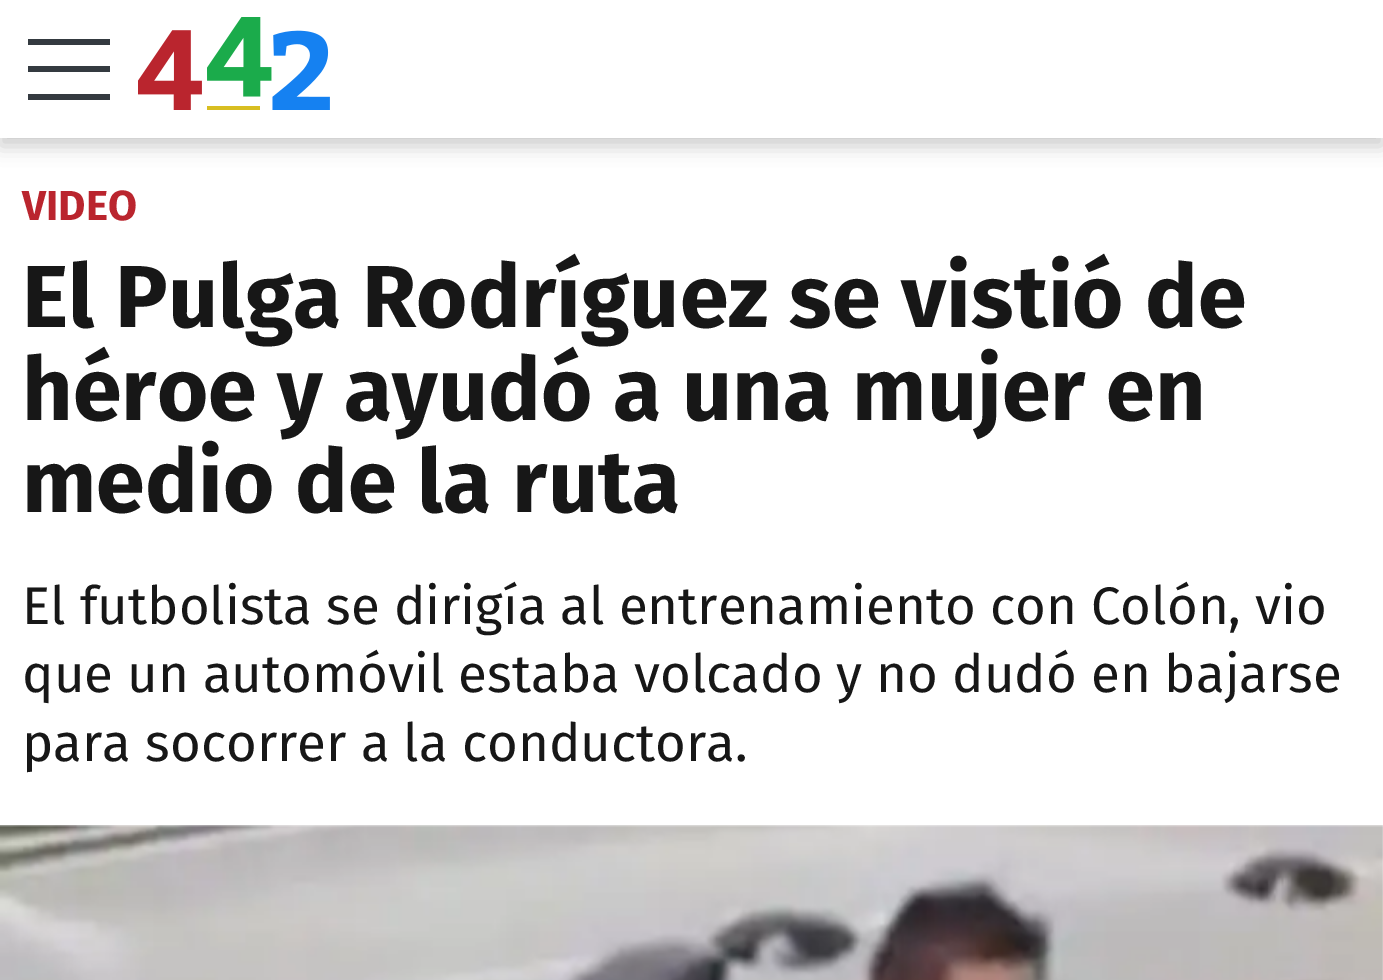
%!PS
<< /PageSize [1383 980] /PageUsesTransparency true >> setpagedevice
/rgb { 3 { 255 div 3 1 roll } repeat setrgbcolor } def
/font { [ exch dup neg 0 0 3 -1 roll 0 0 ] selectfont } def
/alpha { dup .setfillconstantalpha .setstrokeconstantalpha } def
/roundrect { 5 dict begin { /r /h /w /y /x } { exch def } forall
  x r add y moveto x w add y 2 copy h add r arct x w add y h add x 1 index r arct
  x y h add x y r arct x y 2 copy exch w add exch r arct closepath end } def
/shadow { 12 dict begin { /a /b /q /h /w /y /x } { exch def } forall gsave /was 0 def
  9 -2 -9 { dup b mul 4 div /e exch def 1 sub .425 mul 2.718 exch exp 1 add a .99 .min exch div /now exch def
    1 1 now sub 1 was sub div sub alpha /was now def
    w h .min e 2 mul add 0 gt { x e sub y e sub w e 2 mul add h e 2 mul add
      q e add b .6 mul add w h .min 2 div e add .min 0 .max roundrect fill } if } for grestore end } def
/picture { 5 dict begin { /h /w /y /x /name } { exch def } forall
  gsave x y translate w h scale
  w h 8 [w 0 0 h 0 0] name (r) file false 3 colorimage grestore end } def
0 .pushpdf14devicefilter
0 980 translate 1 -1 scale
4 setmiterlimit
255 255 255 rgb
0 0 1383 980 rectfill
0 0 0 rgb
0 8 1383 138 0 9.5 0.2 shadow
[
  [0 0 1383 138 255 255 255]
  [28 39 82 6 52 58 64]
  [28 66 82 6 52 58 64]
  [28 94 82 6 52 58 64]
] { aload pop rgb rectfill } forall
(img/1.rgb) 138 17 192 93 picture
(img/2.rgb) 0 825 1383 155 picture
/FiraSans-Bold 42 font
186 37 46 rgb
22 220 moveto (VIDEO) show
/FiraSans-Bold 88 font
23 23 23 rgb
[
  [(El Pulga Rodríguez se vistió de) 22 327]
  [(héroe y ayudó a una mujer en) 22 420]
  [(medio de la ruta) 22 512]
] { aload pop moveto show } forall
/FiraSans-Regular 52.8 font
[
  [(El futbolista se dirigía al entrenamiento con Colón, vio) 22 624]
  [(que un automóvil estaba volcado y no dudó en bajarse) 22 692]
  [(para socorrer a la conductora.) 22 761]
] { aload pop moveto show } forall
.poppdf14devicefilter showpage
